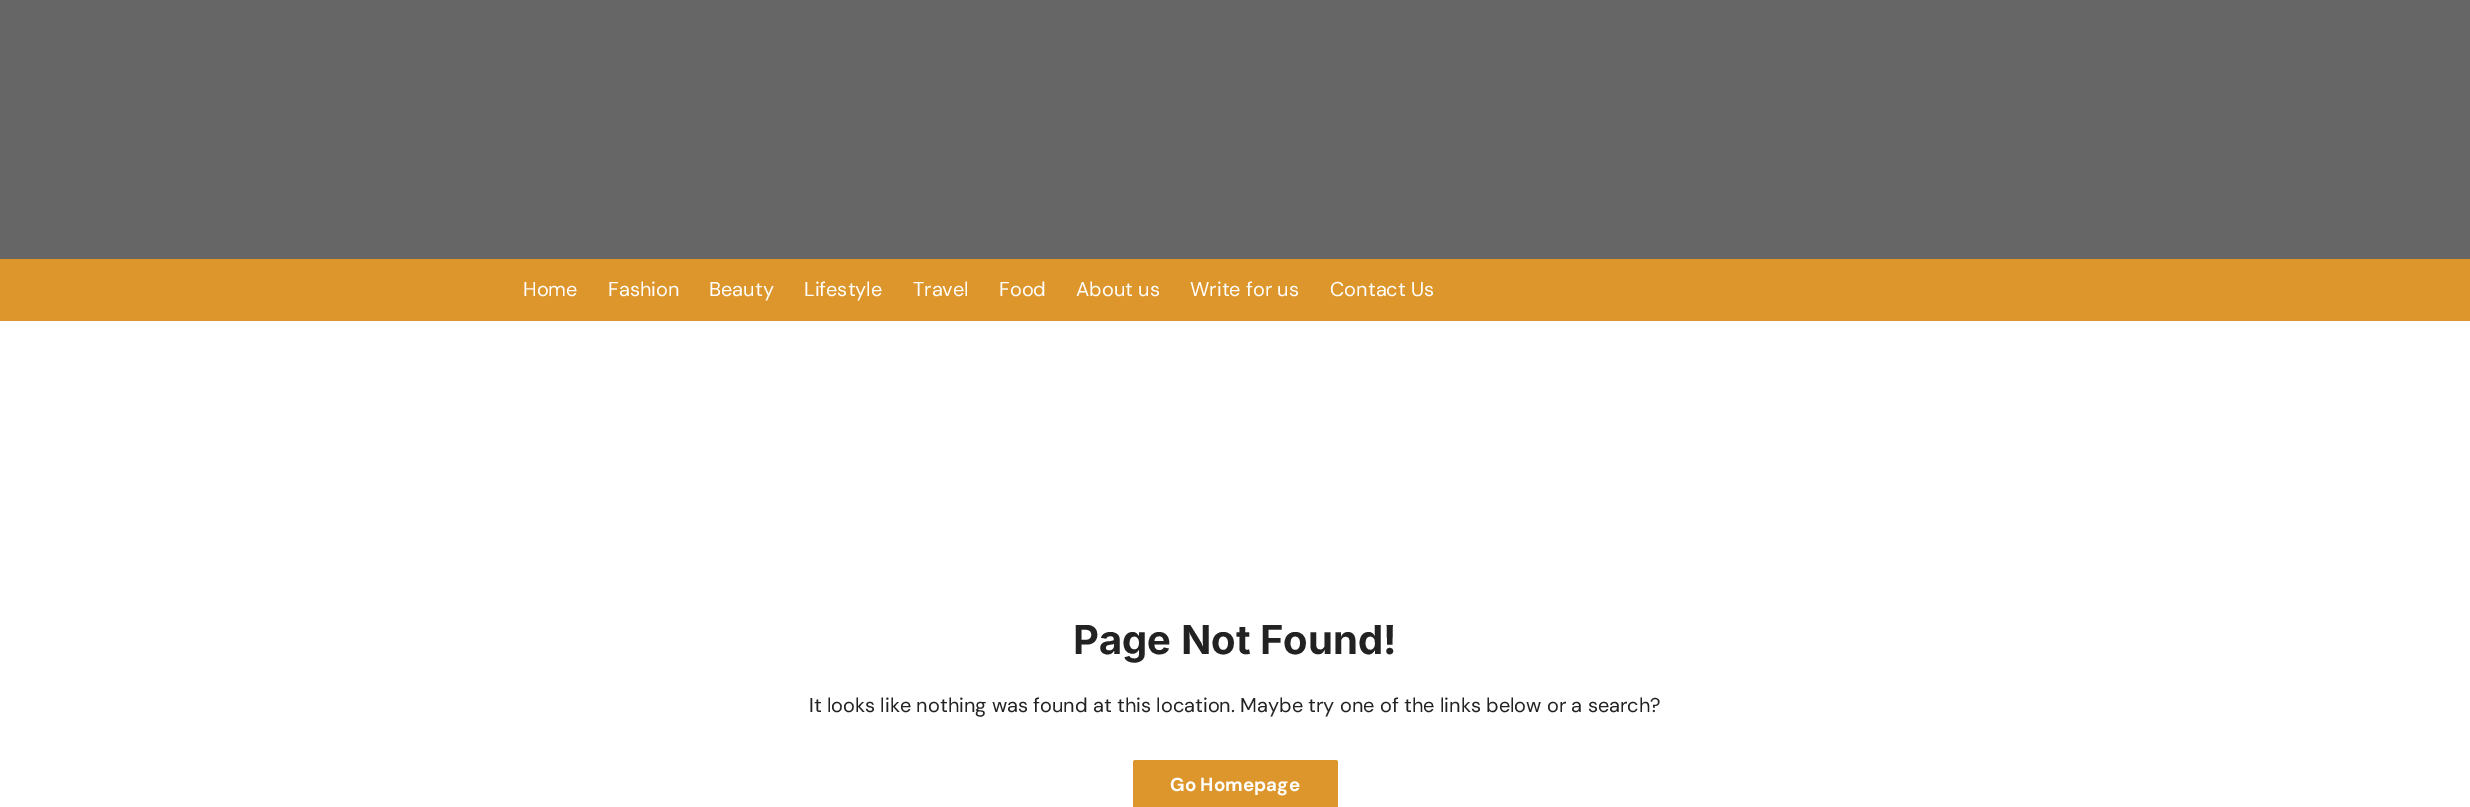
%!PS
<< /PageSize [2470 807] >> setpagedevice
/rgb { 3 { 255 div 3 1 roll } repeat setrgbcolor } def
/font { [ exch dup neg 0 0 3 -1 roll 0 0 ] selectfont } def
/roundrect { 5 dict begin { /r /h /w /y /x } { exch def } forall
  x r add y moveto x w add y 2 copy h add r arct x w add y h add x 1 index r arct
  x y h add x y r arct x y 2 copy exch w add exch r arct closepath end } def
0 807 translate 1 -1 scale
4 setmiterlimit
255 255 255 rgb
0 0 2470 807 rectfill
102 102 102 rgb
0 0 2470 259 rectfill
221 150 44 rgb
0 259 2470 62 rectfill
1133 760 205 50 2.5 roundrect fill
/DMSans-Regular 20 font
255 255 255 rgb
[
  [(Home) 523 296]
  [(Fashion) 608 296]
  [(Beauty) 709 296]
  [(Lifestyle) 804 296]
  [(Travel) 913 296]
  [(Food) 999 296]
  [(About us) 1076 296]
  [(Write for us) 1190 296]
  [(Contact Us) 1330 296]
] { aload pop moveto show } forall
/Inter-Bold 40 font
34 34 34 rgb
1073 654 moveto (Page Not Found!) show
/DMSans-Regular 20 font
809 712 moveto (It looks like nothing was found at this location. Maybe try one of the links below or a search?) show
/DMSans-Bold 18.75 font
255 255 255 rgb
1170 791 moveto (Go Homepage) show
showpage
